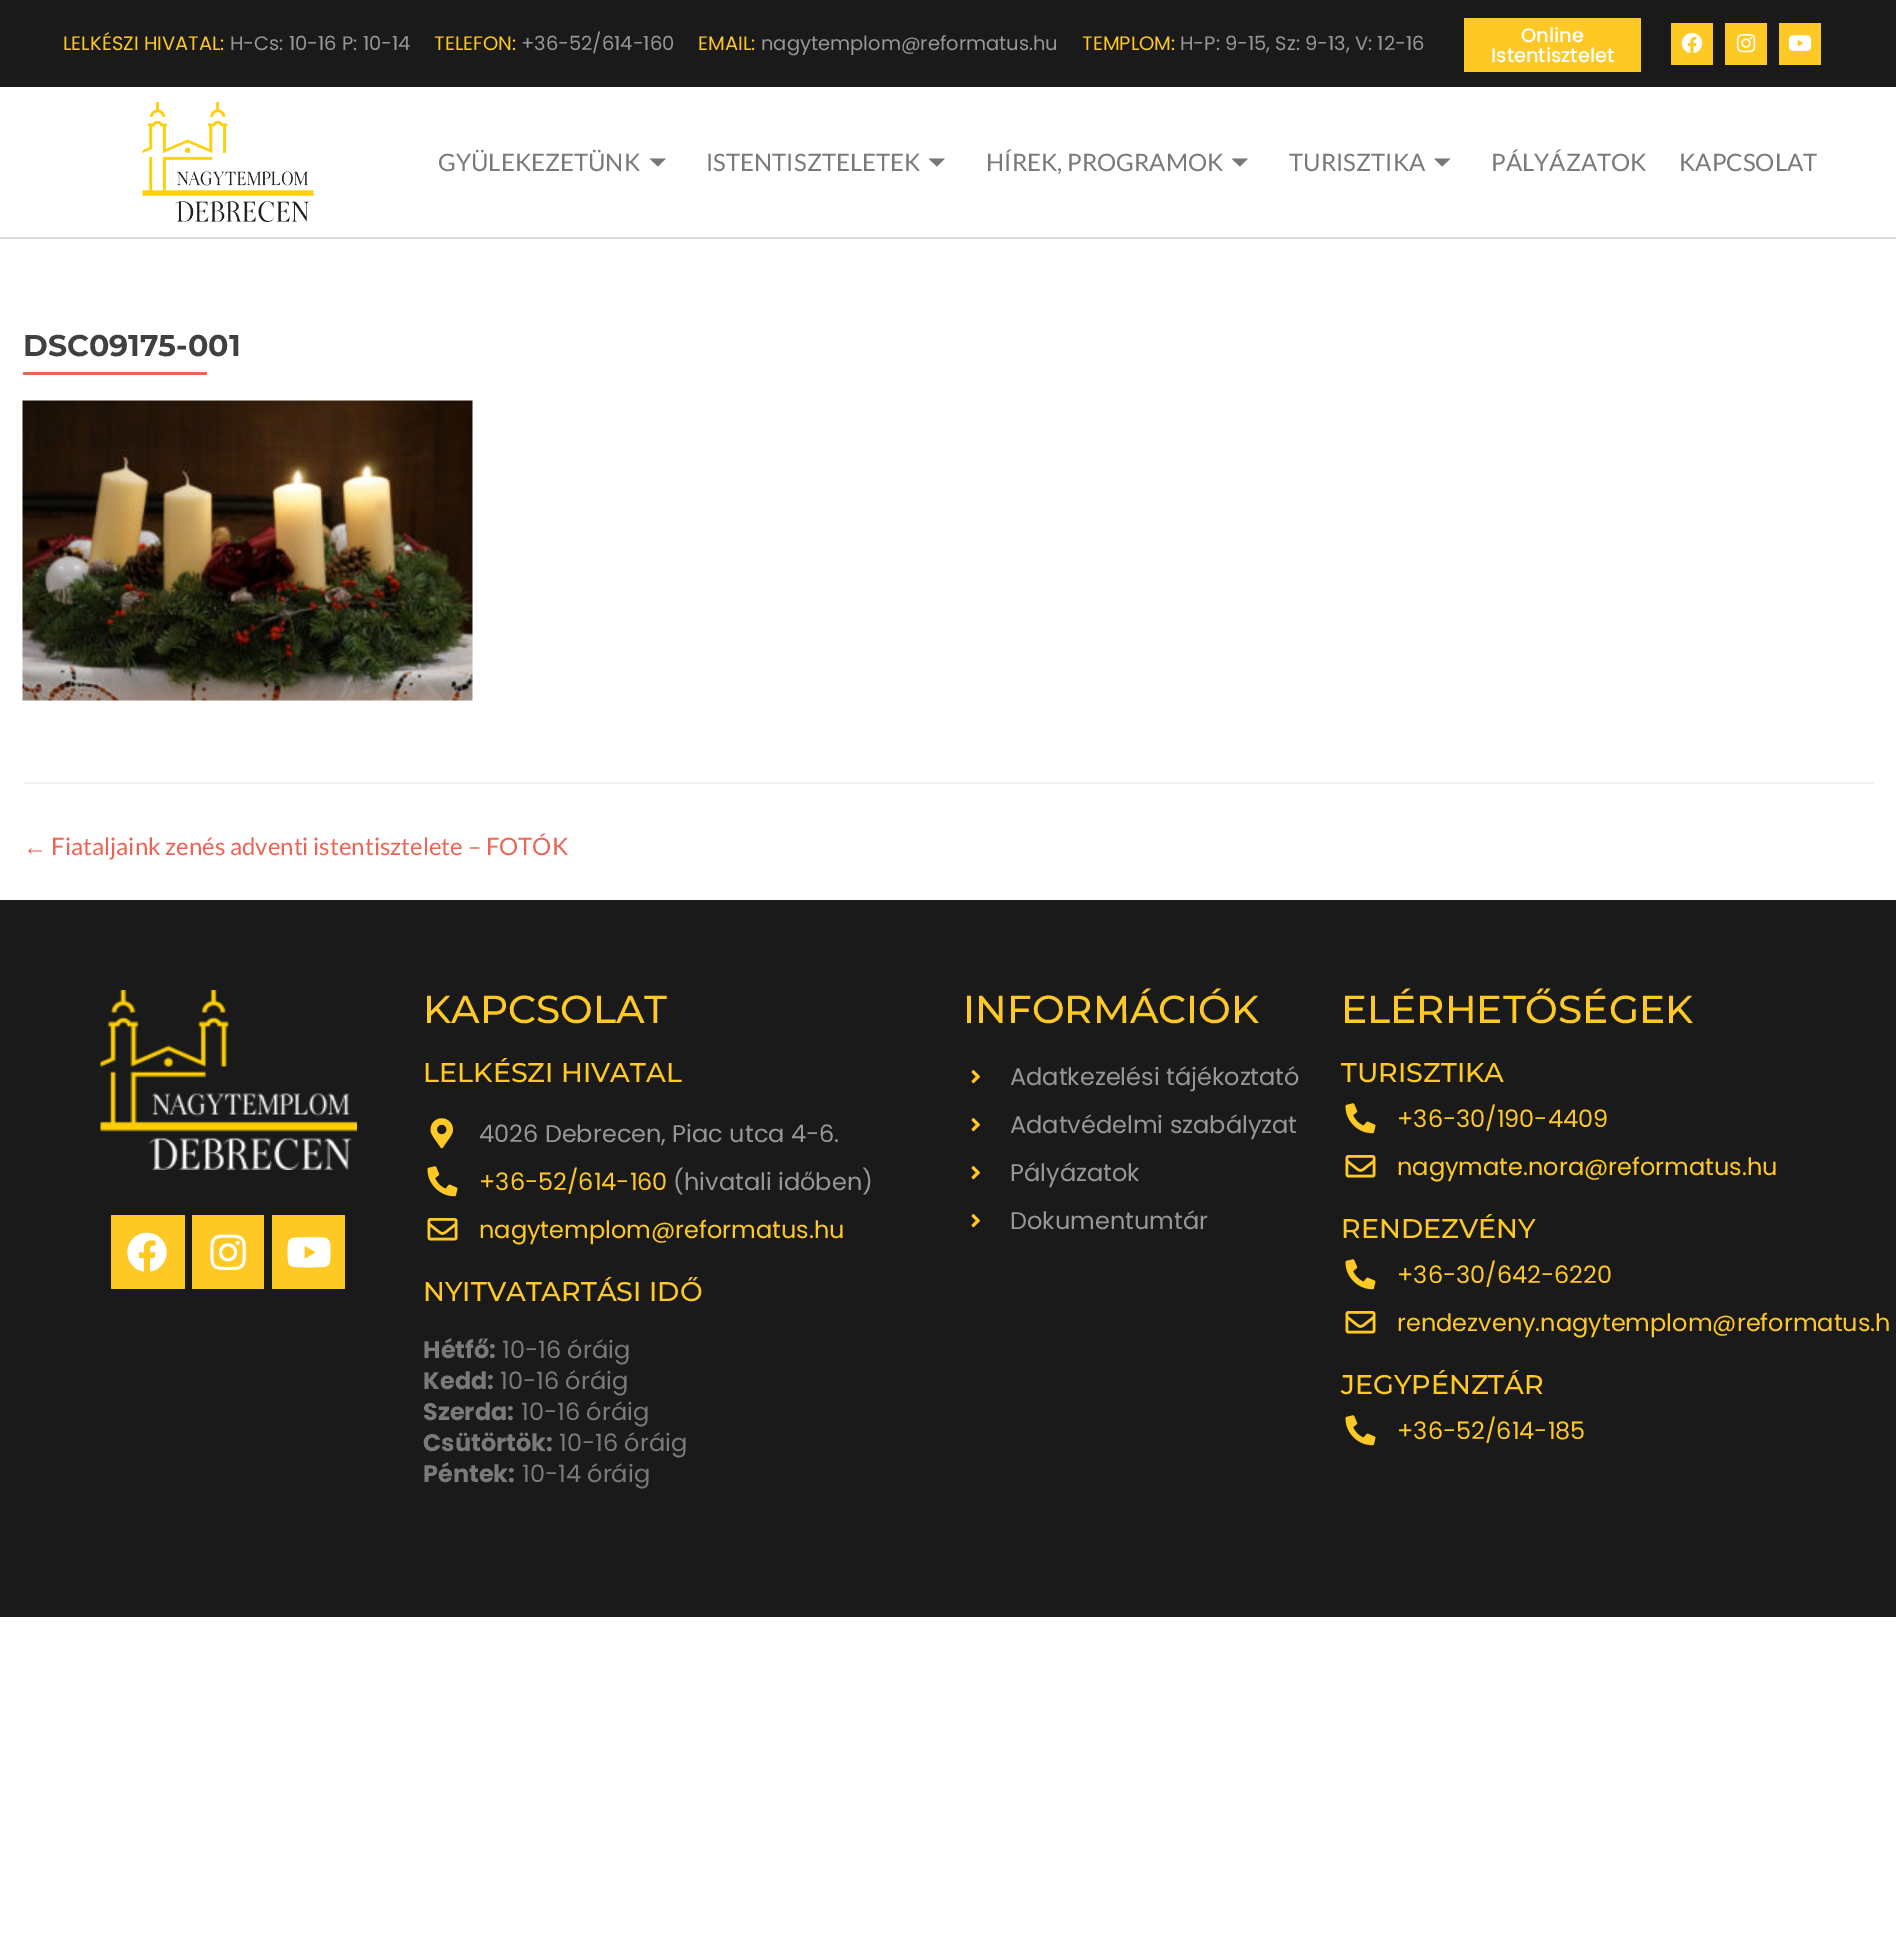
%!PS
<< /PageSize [1896 1955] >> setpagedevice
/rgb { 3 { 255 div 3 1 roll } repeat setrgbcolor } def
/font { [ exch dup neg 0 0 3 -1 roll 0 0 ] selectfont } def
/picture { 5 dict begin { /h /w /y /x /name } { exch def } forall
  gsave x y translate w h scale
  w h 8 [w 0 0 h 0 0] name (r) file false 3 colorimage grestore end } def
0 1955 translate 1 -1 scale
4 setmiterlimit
255 255 255 rgb
0 0 1896 1955 rectfill
[
  [0 0 1896 87 26 26 26]
  [1464 18 177 54 255 201 37]
  [1671 23 42 42 255 201 37]
] { aload pop rgb rectfill } forall
(img/1.rgb) 1681 33 22 21 picture
1725 23 42 42 rectfill
(img/2.rgb) 1736 33 20 20 picture
1779 23 42 42 rectfill
(img/3.rgb) 1788 35 24 16 picture
221 221 221 rgb
0 237 1896 2 rectfill
(img/4.rgb) 142 102 172 120 picture
119 119 119 rgb
649.5 158.5 moveto 666 158.5 lineto 658 166.5 lineto closepath fill
928.5 158.5 moveto 945 158.5 lineto 937 166.5 lineto closepath fill
1231.5 158.5 moveto 1248 158.5 lineto 1240 166.5 lineto closepath fill
1434 158.5 moveto 1450.5 158.5 lineto 1442 166.5 lineto closepath fill
242 242 242 rgb
23 782 1851 2 rectfill
233 102 86 rgb
23 372 184 3 rectfill
(img/5.rgb) 22 400 451 301 picture
26 26 26 rgb
0 900 1896 717 rectfill
(img/6.rgb) 100 990 257 180 picture
255 201 37 rgb
111 1215 74 74 rectfill
(img/7.rgb) 127 1232 40 40 picture
192 1215 72 74 rectfill
(img/8.rgb) 210 1234 36 36 picture
272 1215 73 74 rectfill
(img/9.rgb) 287 1237 44 31 picture
(img/10.rgb) 430 1118 23 31 picture
(img/11.rgb) 427 1166 31 31 picture
(img/12.rgb) 427 1218 31 23 picture
(img/13.rgb) 971 1070 9 14 picture
(img/13.rgb) 971 1118 9 14 picture
(img/13.rgb) 971 1166 9 14 picture
(img/13.rgb) 971 1214 9 14 picture
(img/11.rgb) 1345 1103 31 31 picture
(img/12.rgb) 1345 1155 31 23 picture
(img/11.rgb) 1345 1259 31 31 picture
(img/12.rgb) 1345 1311 31 23 picture
(img/11.rgb) 1345 1415 31 31 picture
/Poppins-Regular 19.5 font
63 50 moveto (LELKÉSZI HIVATAL:) show
151 151 151 rgb
230 50 moveto (H-Cs: 10-16 P: 10-14) show
255 201 37 rgb
434 50 moveto (TELEFON:) show
151 151 151 rgb
521 50 moveto (+36-52/614-160) show
255 201 37 rgb
698 50 moveto (EMAIL:) show
151 151 151 rgb
761 50 moveto (nagytemplom@reformatus.hu) show
255 201 37 rgb
1082 50 moveto (TEMPLOM:) show
151 151 151 rgb
1180 50 moveto (H-P: 9-15, Sz: 9-13, V: 12-16) show
/Poppins-Medium 19.5 font
255 255 255 rgb
1521 42 moveto (Online) show
1491 62 moveto (Istentisztelet) show
/Lato-Regular 24 font
122 122 122 rgb
[
  [(GYÜLEKEZETÜNK) 438 171]
  [(ISTENTISZTELETEK) 706 171]
  [(HÍREK, PROGRAMOK) 986 171]
  [(TURISZTIKA) 1289 171]
  [(PÁLYÁZATOK) 1491 171]
  [(KAPCSOLAT) 1679 171]
] { aload pop moveto show } forall
/Montserrat-Bold 30 font
64 64 64 rgb
23 356 moveto (DSC09175-001) show
/LiberationSans-Regular 24 font
233 102 86 rgb
23 855 moveto (←) show
/Lato-Regular 24 font
51 855 moveto (Fiataljaink zenés adventi istentisztelete – FOTÓK) show
/Montserrat-Medium 39 font
255 201 37 rgb
423 1023 moveto (KAPCSOLAT) show
/Montserrat-Medium 27 font
423 1082 moveto (LELKÉSZI HIVATAL) show
/Poppins-Regular 24 font
151 151 151 rgb
479 1142 moveto (4026 Debrecen, Piac utca 4-6.) show
255 201 37 rgb
479 1190 moveto (+36-52/614-160) show
151 151 151 rgb
673 1190 moveto (\(hivatali időben\)) show
255 201 37 rgb
479 1238 moveto (nagytemplom@reformatus.hu) show
/Montserrat-Medium 27 font
423 1301 moveto (NYITVATARTÁSI IDŐ) show
/Poppins-Bold 24 font
122 122 122 rgb
423 1358 moveto (Hétfő:) show
/Poppins-Regular 24 font
502 1358 moveto (10-16 óráig) show
/Poppins-Bold 24 font
423 1389 moveto (Kedd:) show
/Poppins-Regular 24 font
500 1389 moveto (10-16 óráig) show
/Poppins-Bold 24 font
423 1420 moveto (Szerda:) show
/Poppins-Regular 24 font
521 1420 moveto (10-16 óráig) show
/Poppins-Bold 24 font
423 1451 moveto (Csütörtök:) show
/Poppins-Regular 24 font
559 1451 moveto (10-16 óráig) show
/Poppins-Bold 24 font
423 1482 moveto (Péntek:) show
/Poppins-Regular 24 font
522 1482 moveto (10-14 óráig) show
/Montserrat-Medium 39 font
255 201 37 rgb
963 1023 moveto (INFORMÁCIÓK) show
/Poppins-Regular 24 font
151 151 151 rgb
[
  [(Adatkezelési tájékoztató) 1010 1085]
  [(Adatvédelmi szabályzat) 1010 1133]
  [(Pályázatok) 1010 1181]
  [(Dokumentumtár) 1010 1229]
] { aload pop moveto show } forall
/Montserrat-Medium 39 font
255 201 37 rgb
1341 1023 moveto (ELÉRHETŐSÉGEK) show
/Montserrat-Medium 27 font
1341 1082 moveto (TURISZTIKA) show
/Poppins-Regular 24 font
1397 1127 moveto (+36-30/190-4409) show
1397 1175 moveto (nagymate.nora@reformatus.hu) show
/Montserrat-Medium 27 font
1341 1238 moveto (RENDEZVÉNY) show
/Poppins-Regular 24 font
1397 1283 moveto (+36-30/642-6220) show
1397 1331 moveto (rendezveny.nagytemplom@reformatus.h) show
/Montserrat-Medium 27 font
1341 1394 moveto (JEGYPÉNZTÁR) show
/Poppins-Regular 24 font
1397 1439 moveto (+36-52/614-185) show
showpage
